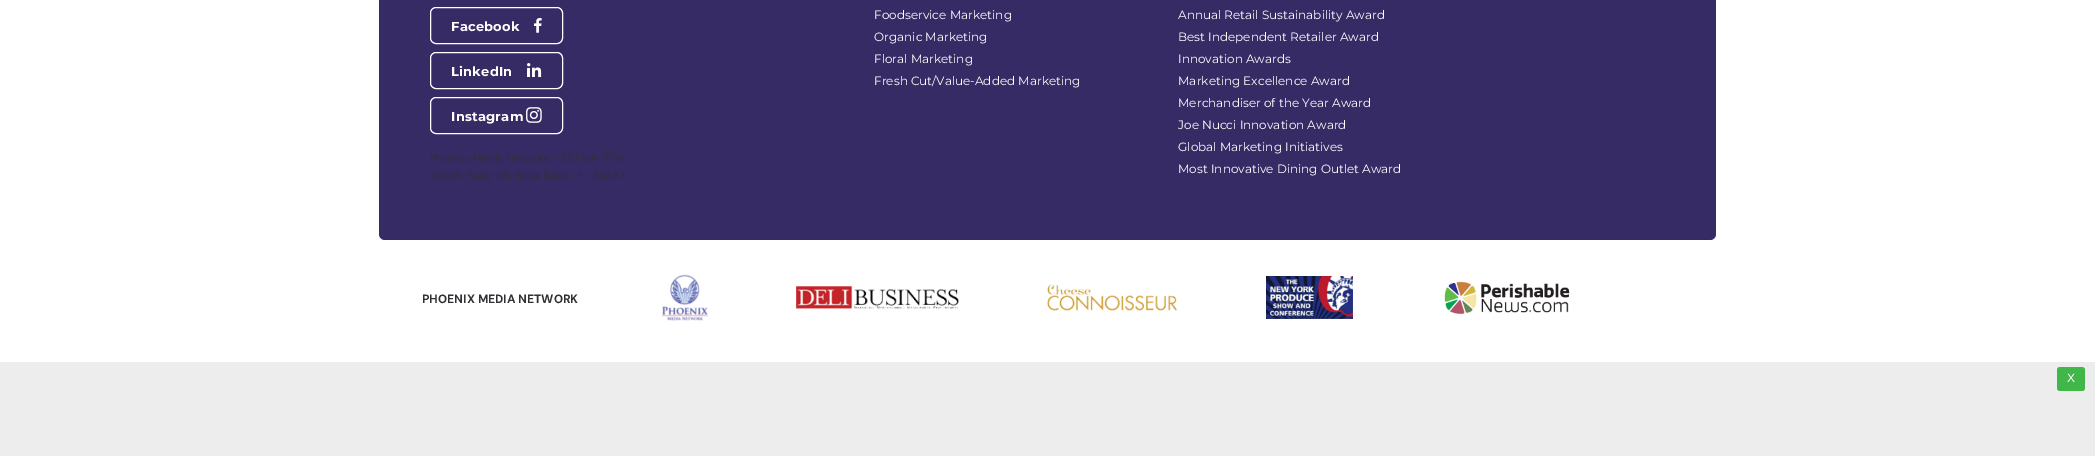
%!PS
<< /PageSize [2095 456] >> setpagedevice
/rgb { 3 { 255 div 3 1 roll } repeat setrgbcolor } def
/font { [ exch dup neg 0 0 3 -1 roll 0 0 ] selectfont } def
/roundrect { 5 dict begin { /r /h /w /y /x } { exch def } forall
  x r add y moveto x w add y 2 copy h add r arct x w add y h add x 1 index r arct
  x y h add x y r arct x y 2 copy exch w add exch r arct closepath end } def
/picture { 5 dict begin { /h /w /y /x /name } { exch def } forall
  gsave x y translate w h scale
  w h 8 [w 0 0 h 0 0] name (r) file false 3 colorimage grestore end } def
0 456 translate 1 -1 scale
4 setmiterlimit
255 255 255 rgb
0 0 2095 456 rectfill
54 43 100 rgb
379 -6 1337 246 6 roundrect fill
255 255 255 rgb
430.5 7.5 132 36 5.5 roundrect stroke
(img/1.rgb) 534 18 8 15 picture
430.5 52.5 132 36 5.5 roundrect stroke
(img/2.rgb) 527 63 15 14 picture
430.5 97.5 132 36 5.5 roundrect stroke
(img/3.rgb) 526 107 16 16 picture
(img/4.rgb) 662 274 46 47 picture
(img/5.rgb) 796 286 163 23 picture
(img/6.rgb) 1047 284 131 27 picture
(img/7.rgb) 1266 276 87 43 picture
(img/8.rgb) 1444 281 126 34 picture
237 237 237 rgb
0 362 2095 94 rectfill
65 182 73 rgb
2057 367 28 24 3 roundrect fill
/Montserrat-Bold 13 font
255 255 255 rgb
451 31 moveto 0.25 0 (Facebook) ashow
451 76 moveto 0.25 0 (LinkedIn) ashow
451 121 moveto 0.25 0 (Instagram) ashow
/DMSans-Light 11 font
48 49 52 rgb
430 162 moveto (Phoenix Media Network - 551 NW 77th) show
430 179 moveto -0.25 0 32 (Street, Suite 101, Boca Raton, FL 33487) widthshow
/Montserrat-Regular 12 font
255 255 255 rgb
[
  [(Foodservice Marketing) 874 19]
  [(Organic Marketing) 874 41]
  [(Floral Marketing) 874 63]
  [(Fresh Cut/Value-Added Marketing) 874 85]
  [(Annual Retail Sustainability Award) 1178 19]
  [(Best Independent Retailer Award) 1178 41]
  [(Innovation Awards) 1178 63]
  [(Marketing Excellence Award) 1178 85]
  [(Merchandiser of the Year Award) 1178 107]
  [(Joe Nucci Innovation Award) 1178 129]
  [(Global Marketing Initiatives) 1178 151]
  [(Most Innovative Dining Outlet Award) 1178 173]
] { aload pop moveto show } forall
/DMSans-Bold 12 font
48 49 52 rgb
422 303 moveto (PHOENIX MEDIA NETWORK) show
/LiberationSans-Regular 12 font
255 255 255 rgb
2067 382 moveto (X) show
showpage
